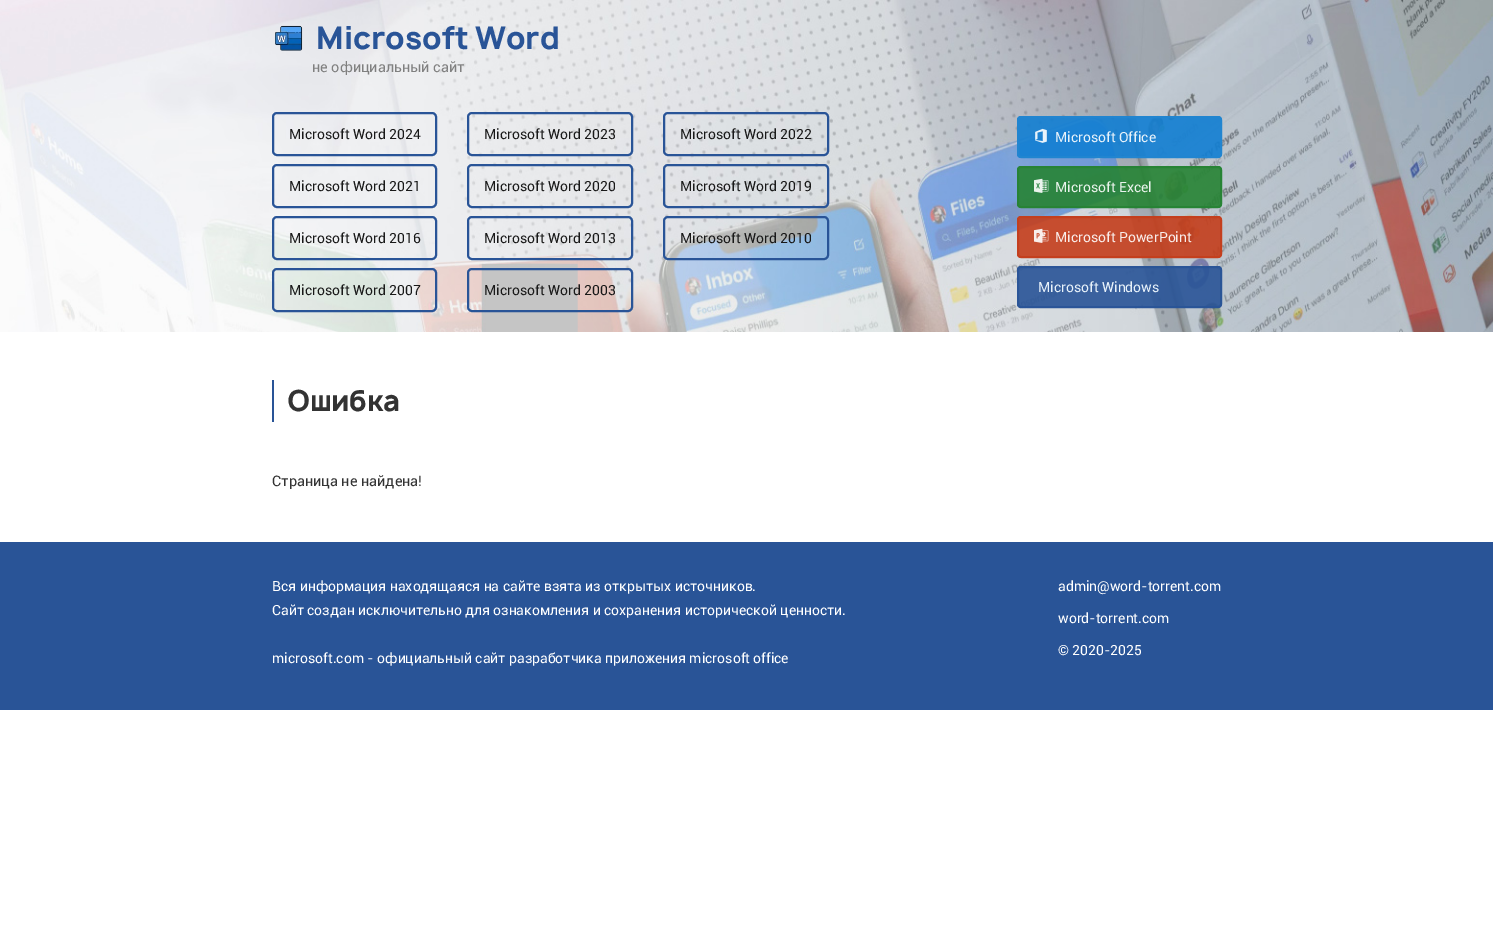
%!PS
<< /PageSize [1493 927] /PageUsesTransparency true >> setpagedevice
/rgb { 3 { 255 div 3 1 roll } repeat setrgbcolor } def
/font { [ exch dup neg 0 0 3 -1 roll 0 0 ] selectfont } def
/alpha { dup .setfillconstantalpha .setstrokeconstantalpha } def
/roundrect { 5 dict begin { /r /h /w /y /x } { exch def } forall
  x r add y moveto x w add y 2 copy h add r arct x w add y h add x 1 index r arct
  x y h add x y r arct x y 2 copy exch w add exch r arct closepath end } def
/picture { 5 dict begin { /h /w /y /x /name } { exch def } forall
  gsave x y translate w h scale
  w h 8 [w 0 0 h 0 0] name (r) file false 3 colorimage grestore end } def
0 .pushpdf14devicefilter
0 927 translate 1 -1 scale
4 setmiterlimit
255 255 255 rgb
0 0 1493 927 rectfill
(img/1.rgb) 0 0 1493 332 picture
(img/2.rgb) 275 25 28 26 picture
41 84 151 rgb
2 setlinewidth
273 113 163 42 4 roundrect stroke
468 113 164 42 4 roundrect stroke
664 113 164 42 4 roundrect stroke
273 165 163 42 4 roundrect stroke
468 165 164 42 4 roundrect stroke
664 165 164 42 4 roundrect stroke
273 217 163 42 4 roundrect stroke
468 217 164 42 4 roundrect stroke
664 217 164 42 4 roundrect stroke
273 269 163 42 4 roundrect stroke
468 269 164 42 4 roundrect stroke
0.9 alpha
17 126 210 rgb
1017 116 205 42 4 roundrect fill
33 133 208 rgb
1018 117 203 40 3 roundrect stroke
1 alpha
(img/3.rgb) 1035 128 12 15 picture
0.9 alpha
38 131 52 rgb
1017 166 205 42 4 roundrect fill
1018 167 203 40 3 roundrect stroke
1 alpha
(img/4.rgb) 1034 178 15 15 picture
0.9 alpha
196 62 28 rgb
1017 216 205 42 4 roundrect fill
1018 217 203 40 3 roundrect stroke
1 alpha
(img/5.rgb) 1034 228 15 15 picture
0.9 alpha
41 84 151 rgb
1017 266 205 42 4 roundrect fill
1018 267 203 40 3 roundrect stroke
1 alpha
272 380 2 42 rectfill
0 542 1493 168 rectfill
/Manrope-ExtraBold 30 font
316 49 moveto (Microsoft Word) show
/Roboto-Regular 14.5 font
128 128 128 rgb
312 72 moveto (не официальный сайт) show
/Roboto-Regular 14 font
25 25 25 rgb
[
  [(Microsoft Word 2024) 289 139]
  [(Microsoft Word 2023) 484 139]
  [(Microsoft Word 2022) 680 139]
  [(Microsoft Word 2021) 289 191]
  [(Microsoft Word 2020) 484 191]
  [(Microsoft Word 2019) 680 191]
  [(Microsoft Word 2016) 289 243]
  [(Microsoft Word 2013) 484 243]
  [(Microsoft Word 2010) 680 243]
  [(Microsoft Word 2007) 289 295]
  [(Microsoft Word 2003) 484 295]
] { aload pop moveto show } forall
232 242 250 rgb
1055 142 moveto (Microsoft Office) show
234 243 236 rgb
1055 192 moveto (Microsoft Excel) show
249 237 234 rgb
1055 242 moveto (Microsoft PowerPoint) show
232 242 250 rgb
1038 292 moveto (Microsoft Windows) show
/Manrope-ExtraBold 28 font
51 51 51 rgb
287 411 moveto -0.5 0 (Ошибка) ashow
/Roboto-Regular 14.5 font
272 486 moveto (Страница не найдена!) show
/Roboto-Regular 14 font
255 255 255 rgb
[
  [(Вся информация находящаяся на сайте взята из открытых источников.) 272 591]
  [(Сайт создан исключительно для ознакомления и сохранения исторической ценности.) 272 615]
  [(microsoft.com - официальный сайт разработчика приложения microsoft office) 272 663]
  [(admin@word-torrent.com) 1058 591]
  [(word-torrent.com) 1058 623]
  [(© 2020-2025) 1058 655]
] { aload pop moveto show } forall
.poppdf14devicefilter showpage
